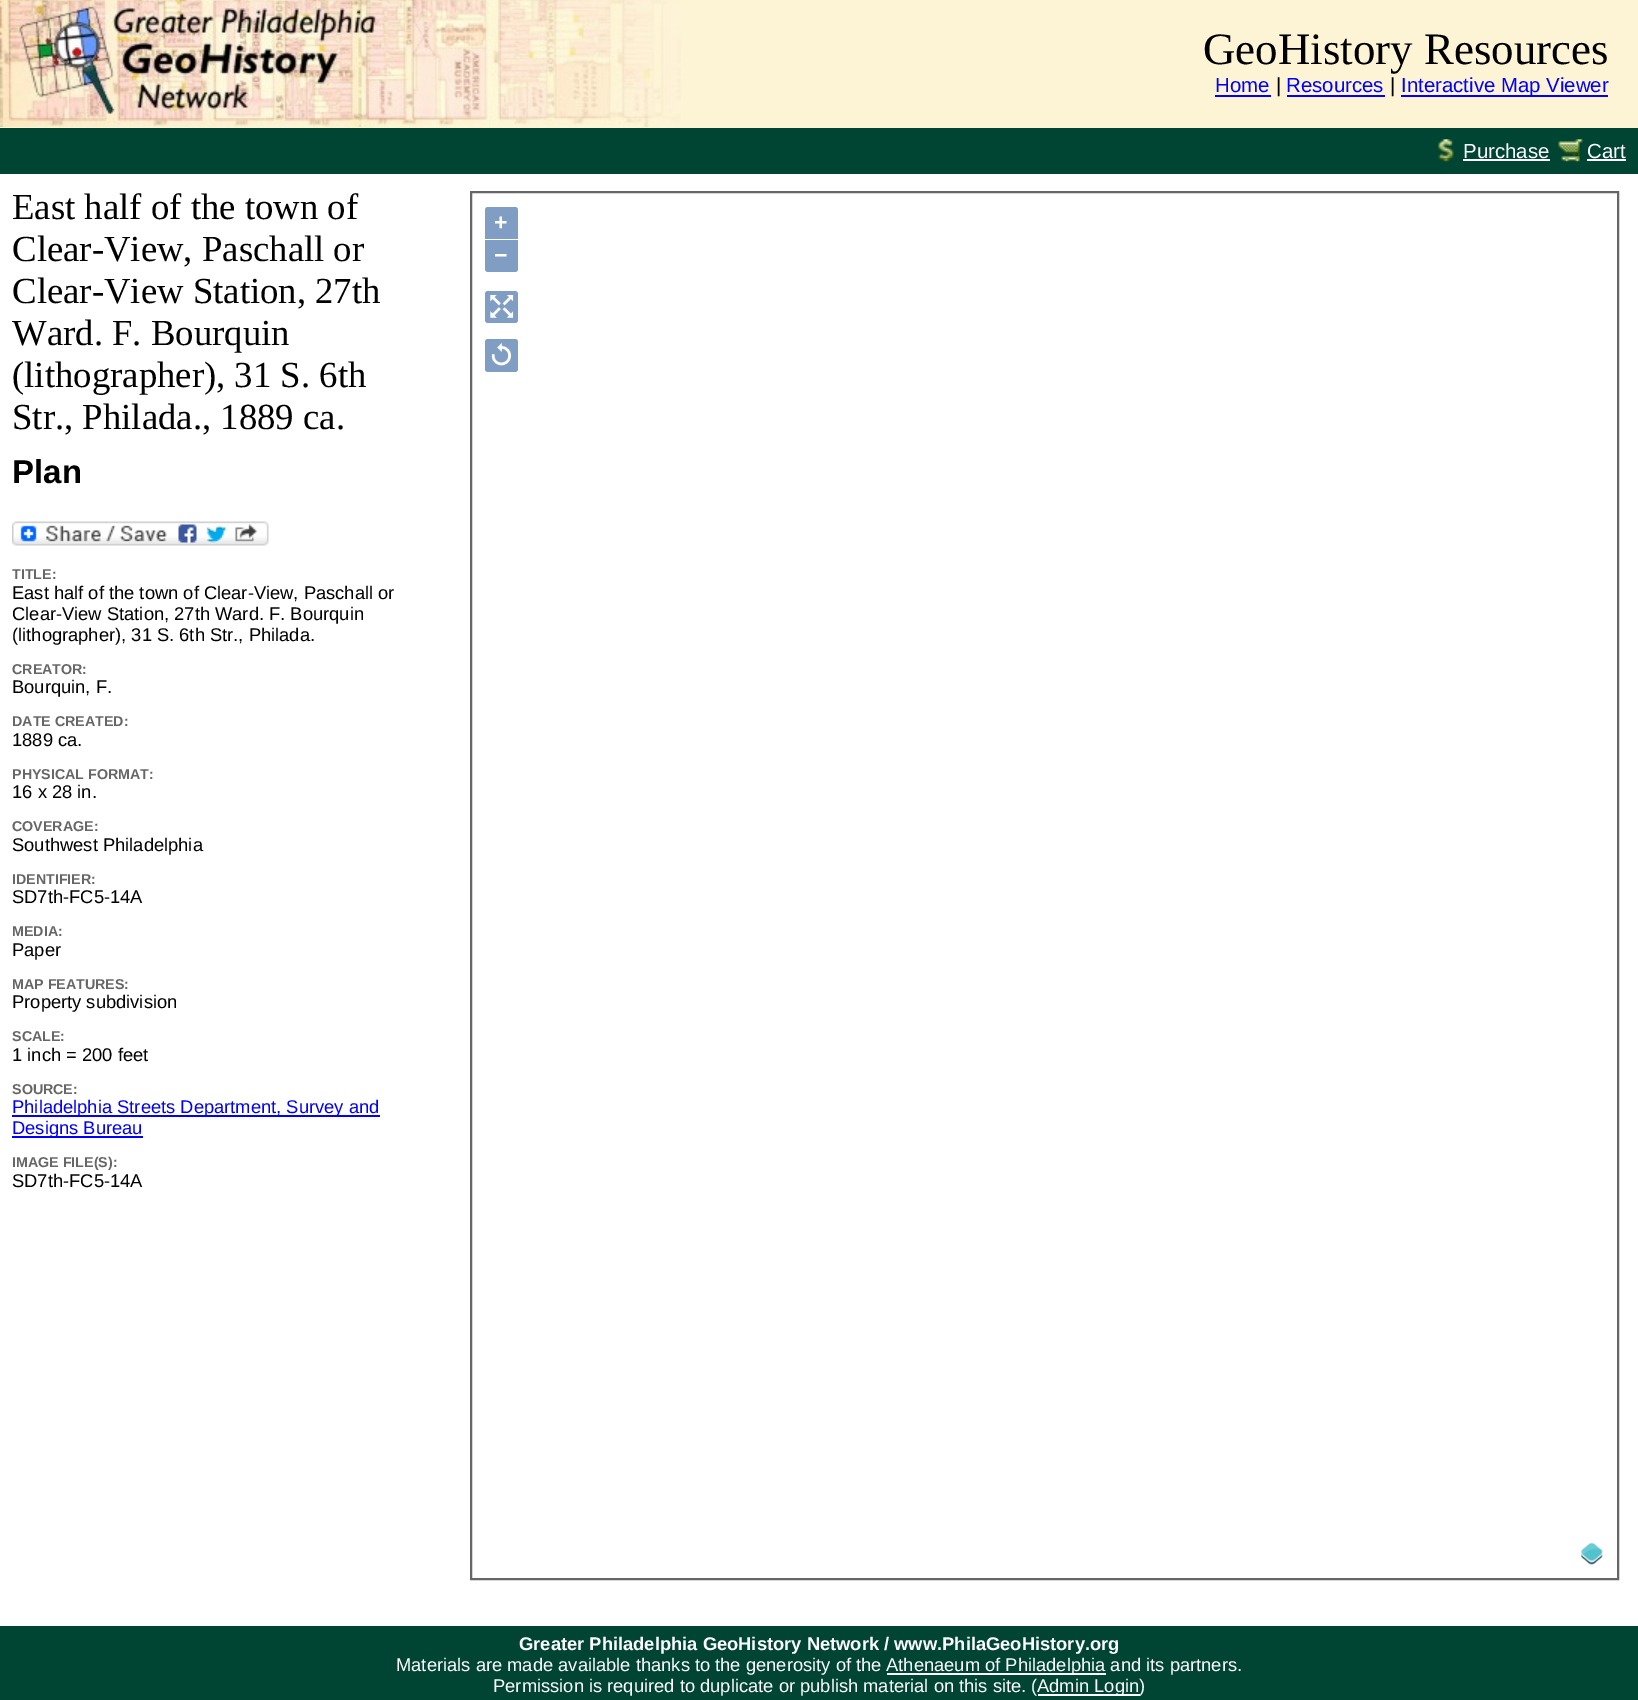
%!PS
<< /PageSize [1638 1700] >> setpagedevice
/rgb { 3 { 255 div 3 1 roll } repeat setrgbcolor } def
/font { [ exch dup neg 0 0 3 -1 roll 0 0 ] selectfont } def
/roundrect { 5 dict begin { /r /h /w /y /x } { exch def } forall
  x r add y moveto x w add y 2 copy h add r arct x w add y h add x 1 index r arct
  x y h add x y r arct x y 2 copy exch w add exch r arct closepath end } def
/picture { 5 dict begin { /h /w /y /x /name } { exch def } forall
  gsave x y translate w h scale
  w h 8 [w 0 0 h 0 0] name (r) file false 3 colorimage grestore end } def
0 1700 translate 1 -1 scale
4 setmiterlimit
255 255 255 rgb
0 0 1638 1700 rectfill
253 244 213 rgb
0 0 1638 128 rectfill
(img/1.rgb) 0 0 681 127 picture
[
  [1215 95 56 2 0 0 255]
  [1287 95 98 2 0 0 255]
  [1401 95 207 2 0 0 255]
  [0 128 1638 46 0 68 51]
] { aload pop rgb rectfill } forall
(img/2.rgb) 1438 139 16 23 picture
255 255 255 rgb
1463 159 87 2 rectfill
(img/3.rgb) 1558 139 25 23 picture
1587 159 39 2 rectfill
(img/4.rgb) 12 521 257 25 picture
0 0 255 rgb
12 1115 368 2 rectfill
12 1136 131 2 rectfill
102 102 102 rgb
2 setlinewidth
471 192 1147 1387 rectstroke
128 158 196 rgb
488 207 moveto 515 207 lineto 516.5 207 518 208.5 518 210 curveto 518 239 lineto 485 239 lineto 485 210 lineto 485 208.5 486.5 207 488 207 curveto closepath fill
485 240 moveto 518 240 lineto 518 269 lineto 518 270.5 516.5 272 515 272 curveto 488 272 lineto 486.5 272 485 270.5 485 269 curveto closepath fill
485 291 33 32 3 roundrect fill
(img/5.rgb) 490 295 24 23 picture
485 339 33 33 3 roundrect fill
(img/6.rgb) 491 343 20 23 picture
(img/7.rgb) 1581 1542 22 23 picture
[
  [0 1626 1638 74 0 68 51]
  [887 1673 219 2 255 255 255]
  [1038 1694 102 2 255 255 255]
] { aload pop rgb rectfill } forall
/LiberationSerif-Regular 44.9 font
0 0 0 rgb
1203 64 moveto (GeoHistory Resources) show
/LiberationSans-Regular 20.4 font
0 0 255 rgb
1215 92 moveto (Home) show
0 0 0 rgb
1276 92 moveto (|) show
0 0 255 rgb
1286 92 moveto (Resources) show
0 0 0 rgb
1390 92 moveto (|) show
0 0 255 rgb
1401 92 moveto (Interactive Map Viewer) show
255 255 255 rgb
1463 158 moveto (Purchase) show
1587 158 moveto (Cart) show
/LiberationSerif-Regular 36.75 font
0 0 0 rgb
[
  [(East half of the town of) 12 219]
  [(Clear-View, Paschall or) 12 261]
  [(Clear-View Station, 27th) 12 303]
  [(Ward. F. Bourquin) 12 345]
  [(\(lithographer\), 31 S. 6th) 12 387]
  [(Str., Philada., 1889 ca.) 12 429]
] { aload pop moveto show } forall
/LiberationSans-Bold 33 font
12 483 moveto (Plan) show
/LiberationSans-Bold 14.25 font
102 102 102 rgb
12 579 moveto (TITLE:) show
/LiberationSans-Regular 18.35 font
0 0 0 rgb
[
  [(East half of the town of Clear-View, Paschall or) 12 599]
  [(Clear-View Station, 27th Ward. F. Bourquin) 12 620]
  [(\(lithographer\), 31 S. 6th Str., Philada.) 12 641]
] { aload pop moveto show } forall
/LiberationSans-Bold 14.25 font
102 102 102 rgb
12 674 moveto (CREATOR:) show
/LiberationSans-Regular 18.35 font
0 0 0 rgb
12 693 moveto (Bourquin, F.) show
/LiberationSans-Bold 14.25 font
102 102 102 rgb
12 726 moveto (DATE CREATED:) show
/LiberationSans-Regular 18.35 font
0 0 0 rgb
12 746 moveto (1889 ca.) show
/LiberationSans-Bold 14.25 font
102 102 102 rgb
12 779 moveto (PHYSICAL FORMAT:) show
/LiberationSans-Regular 18.35 font
0 0 0 rgb
12 798 moveto (16 x 28 in.) show
/LiberationSans-Bold 14.25 font
102 102 102 rgb
12 831 moveto (COVERAGE:) show
/LiberationSans-Regular 18.35 font
0 0 0 rgb
12 851 moveto (Southwest Philadelphia) show
/LiberationSans-Bold 14.25 font
102 102 102 rgb
12 884 moveto (IDENTIFIER:) show
/LiberationSans-Regular 18.35 font
0 0 0 rgb
12 903 moveto (SD7th-FC5-14A) show
/LiberationSans-Bold 14.25 font
102 102 102 rgb
12 936 moveto (MEDIA:) show
/LiberationSans-Regular 18.35 font
0 0 0 rgb
12 956 moveto (Paper) show
/LiberationSans-Bold 14.25 font
102 102 102 rgb
12 989 moveto (MAP FEATURES:) show
/LiberationSans-Regular 18.35 font
0 0 0 rgb
12 1008 moveto (Property subdivision) show
/LiberationSans-Bold 14.25 font
102 102 102 rgb
12 1041 moveto (SCALE:) show
/LiberationSans-Regular 18.35 font
0 0 0 rgb
12 1061 moveto (1 inch = 200 feet) show
/LiberationSans-Bold 14.25 font
102 102 102 rgb
12 1094 moveto (SOURCE:) show
/LiberationSans-Regular 18.35 font
0 0 255 rgb
12 1113 moveto (Philadelphia Streets Department, Survey and) show
12 1134 moveto (Designs Bureau) show
/LiberationSans-Bold 14.25 font
102 102 102 rgb
12 1167 moveto (IMAGE FILE\(S\):) show
/LiberationSans-Regular 18.35 font
0 0 0 rgb
12 1187 moveto (SD7th-FC5-14A) show
/LiberationSans-Bold 23 font
255 255 255 rgb
494 230 moveto (+) show
494 263 moveto (−) show
/LiberationSans-Bold 18.35 font
519 1650 moveto (Greater Philadelphia GeoHistory Network / www.PhilaGeoHistory.org) show
/LiberationSans-Regular 18.35 font
[
  [(Materials are made available thanks to the generosity of the) 396 1671]
  [(Athenaeum of Philadelphia and its partners.) 886 1671]
  [(Permission is required to duplicate or publish material on this site. \() 493 1692]
  [(Admin Login\)) 1037 1692]
] { aload pop moveto show } forall
showpage
